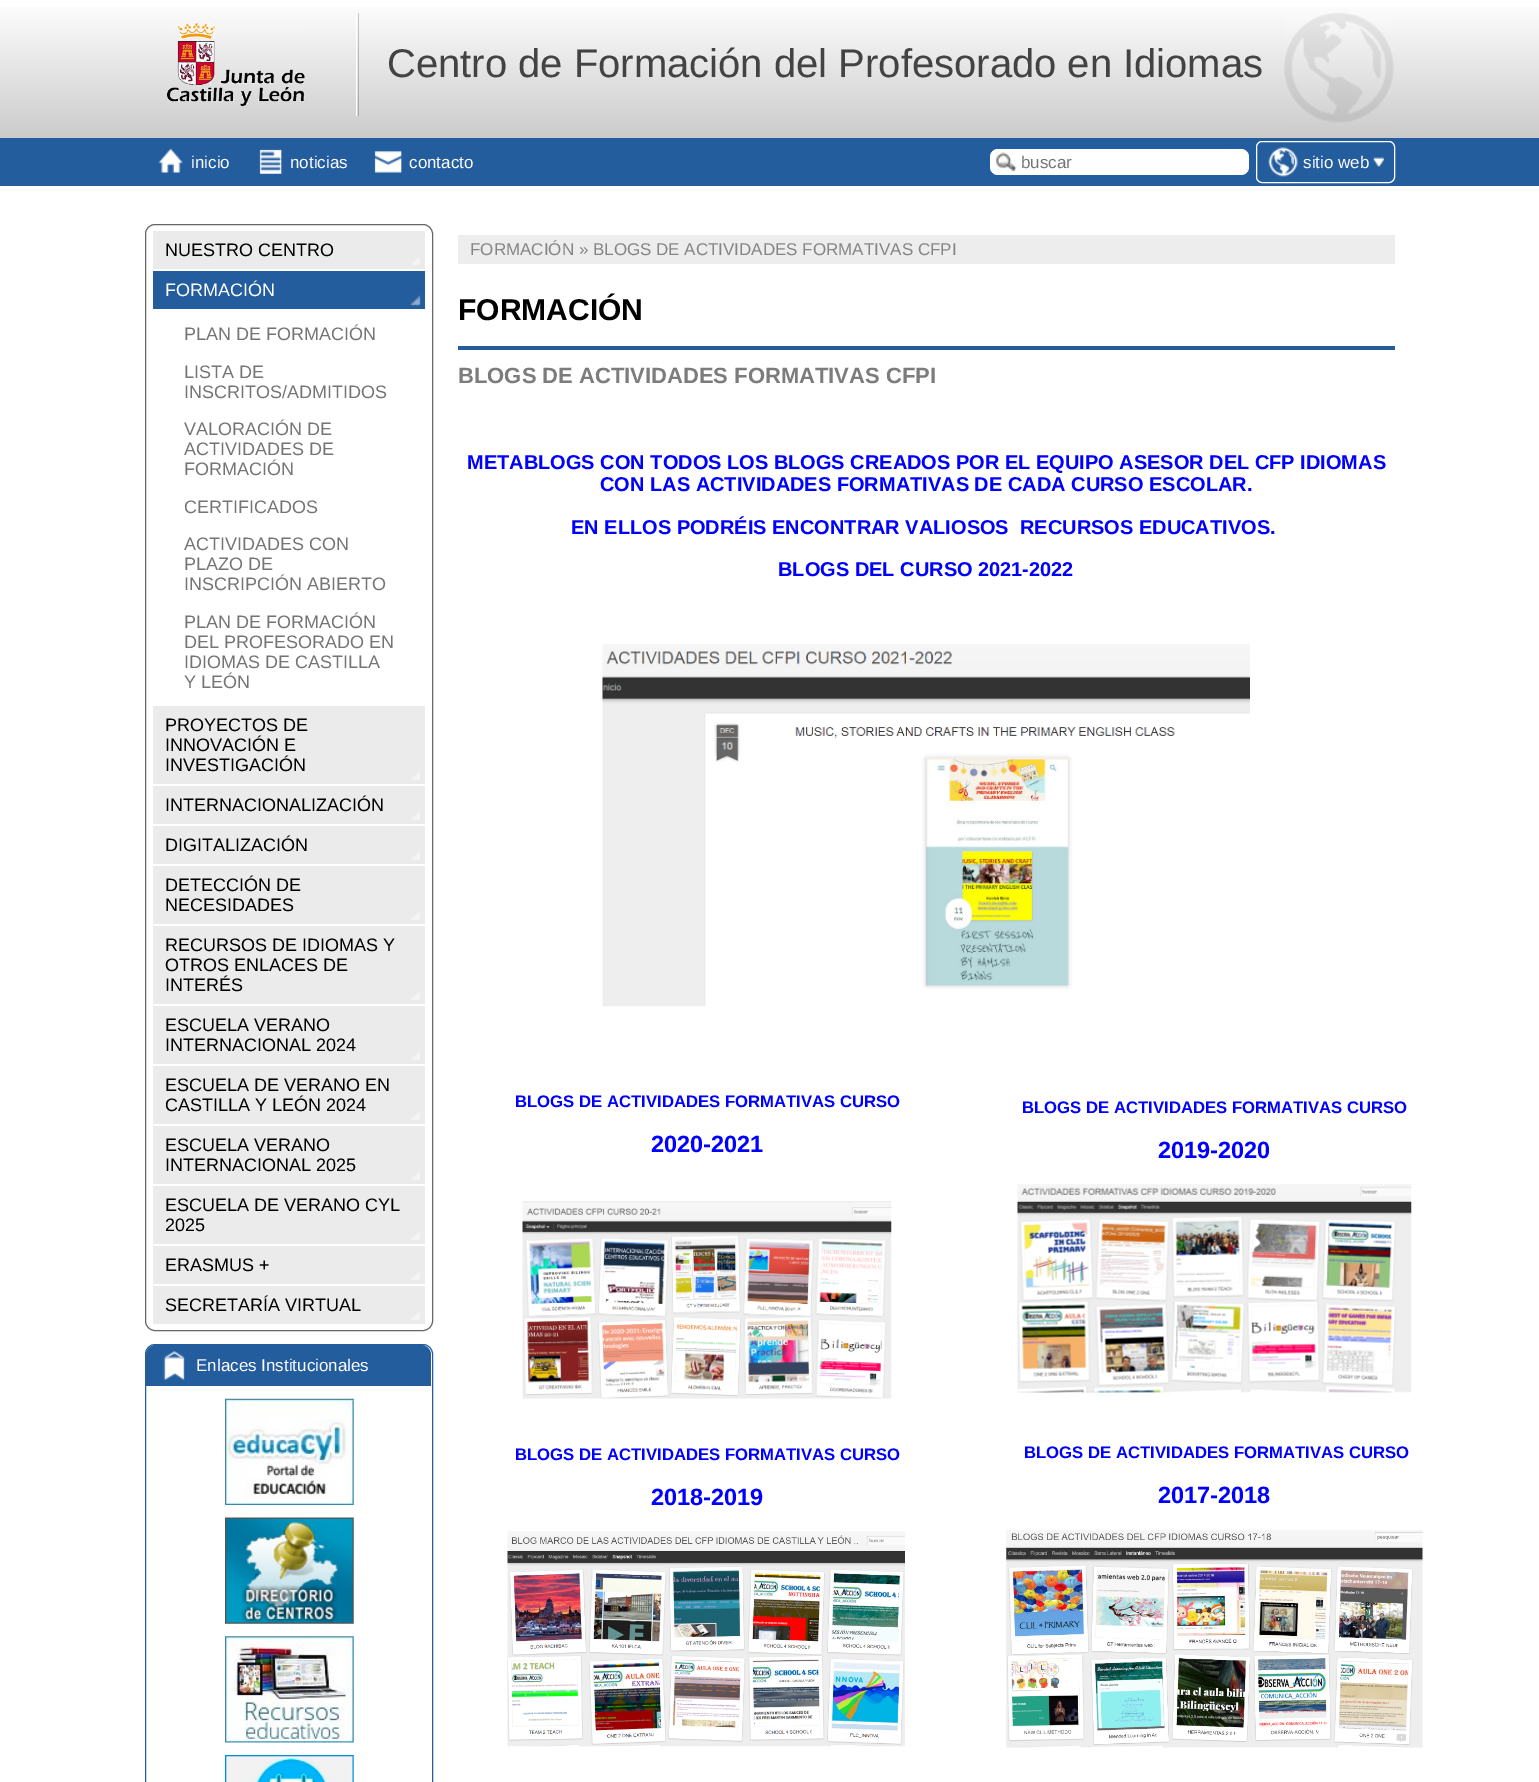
%!PS
<< /PageSize [1539 1782] >> setpagedevice
/rgb { 3 { 255 div 3 1 roll } repeat setrgbcolor } def
/font { [ exch dup neg 0 0 3 -1 roll 0 0 ] selectfont } def
/roundrect { 5 dict begin { /r /h /w /y /x } { exch def } forall
  x r add y moveto x w add y 2 copy h add r arct x w add y h add x 1 index r arct
  x y h add x y r arct x y 2 copy exch w add exch r arct closepath end } def
/picture { 5 dict begin { /h /w /y /x /name } { exch def } forall
  gsave x y translate w h scale
  w h 8 [w 0 0 h 0 0] name (r) file false 3 colorimage grestore end } def
0 1782 translate 1 -1 scale
4 setmiterlimit
255 255 255 rgb
0 0 1539 1782 rectfill
gsave 0 7 moveto 1539 7 lineto 1539 138 lineto 0 138 lineto closepath clip newpath
<< /ShadingType 2 /ColorSpace /DeviceRGB /Coords [770 0 770 138] /Extend [true true] /Function << /FunctionType 2 /Domain [0 1] /C0 [1 1 1] /C1 [0.796 0.796 0.796] /N 1 >> >> shfill grestore
gsave 358 13 moveto 359 13 lineto 359 116 lineto 358 116 lineto closepath clip newpath
<< /ShadingType 2 /ColorSpace /DeviceRGB /Coords [770 0 770 138] /Extend [true true] /Function << /FunctionType 2 /Domain [0 1] /C0 [0.8 0.8 0.8] /C1 [0.635 0.635 0.635] /N 1 >> >> shfill grestore
(img/1.rgb) 1284 12 110 111 picture
356 13 1 103 rectfill
(img/2.rgb) 167 23 138 83 picture
36 93 158 rgb
0 138 1539 48 rectfill
(img/3.rgb) 158 148 25 25 picture
(img/4.rgb) 259 149 23 25 picture
(img/5.rgb) 374 151 28 22 picture
255 255 255 rgb
990 149 259 26 8 roundrect fill
(img/6.rgb) 995 152 22 20 picture
1256.5 141.5 138 41 5.5 roundrect stroke
(img/7.rgb) 1268 147 30 30 picture
(img/8.rgb) 1373 157 11 10 picture
102 102 102 rgb
145.5 224.5 287 1106 9.5 roundrect stroke
235 235 235 rgb
153 231 272 38 rectfill
(img/9.rgb) 411 257 9 8 picture
36 93 158 rgb
153 271 272 38 rectfill
(img/10.rgb) 410 295 11 11 picture
235 235 235 rgb
153 706 272 78 rectfill
(img/9.rgb) 411 772 9 8 picture
153 786 272 38 rectfill
(img/9.rgb) 411 812 9 8 picture
153 826 272 38 rectfill
(img/9.rgb) 411 852 9 8 picture
153 866 272 58 rectfill
(img/9.rgb) 411 912 9 8 picture
153 926 272 78 rectfill
(img/9.rgb) 411 992 9 8 picture
153 1006 272 58 rectfill
(img/9.rgb) 411 1052 9 8 picture
153 1066 272 58 rectfill
(img/9.rgb) 411 1112 9 8 picture
153 1126 272 58 rectfill
(img/11.rgb) 411 1172 9 8 picture
153 1186 272 58 rectfill
(img/9.rgb) 411 1232 9 8 picture
153 1246 272 38 rectfill
(img/9.rgb) 411 1272 9 8 picture
153 1286 272 38 rectfill
(img/9.rgb) 411 1312 9 8 picture
36 93 158 rgb
145.5 1344.5 287 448 9.5 roundrect stroke
gsave
146 1345 285 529 9 roundrect clip newpath
156 1345 moveto 421 1345 lineto 426.5 1345 431 1349.5 431 1355 curveto 431 1386 lineto 146 1386 lineto 146 1355 lineto 146 1349.5 150.5 1345 156 1345 curveto closepath fill
grestore
(img/12.rgb) 163 1351 22 30 picture
(img/13.rgb) 225 1398 129 107 picture
(img/14.rgb) 225 1517 129 107 picture
(img/15.rgb) 225 1636 129 107 picture
(img/16.rgb) 225 1755 129 27 picture
237 237 237 rgb
458 235 937 29 rectfill
36 93 158 rgb
458 346 937 4 rectfill
(img/17.rgb) 602 644 648 363 picture
(img/18.rgb) 522 1201 370 198 picture
(img/19.rgb) 1017 1184 395 209 picture
(img/20.rgb) 507 1531 398 216 picture
(img/21.rgb) 1006 1530 417 218 picture
/LiberationSans-Regular 40 font
67 67 67 rgb
387 77 moveto (Centro de Formación del Profesorado en Idiomas) show
/LiberationSans-Regular 17 font
255 255 255 rgb
[
  [(inicio) 191 168]
  [(noticias) 290 168]
  [(contacto) 409 168]
] { aload pop moveto show } forall
117 117 117 rgb
1021 168 moveto (buscar) show
255 255 255 rgb
1303 168 moveto (sitio web) show
/LiberationSans-Regular 18 font
0 0 0 rgb
165 256 moveto (NUESTRO CENTRO) show
255 255 255 rgb
165 296 moveto (FORMACIÓN) show
117 117 117 rgb
[
  [(PLAN DE FORMACIÓN) 184 340]
  [(LISTA DE) 184 378]
  [(INSCRITOS/ADMITIDOS) 184 398]
  [(VALORACIÓN DE) 184 435]
  [(ACTIVIDADES DE) 184 455]
  [(FORMACIÓN) 184 475]
  [(CERTIFICADOS) 184 513]
  [(ACTIVIDADES CON) 184 550]
  [(PLAZO DE) 184 570]
  [(INSCRIPCIÓN ABIERTO) 184 590]
  [(PLAN DE FORMACIÓN) 184 628]
  [(DEL PROFESORADO EN) 184 648]
  [(IDIOMAS DE CASTILLA) 184 668]
  [(Y LEÓN) 184 688]
] { aload pop moveto show } forall
0 0 0 rgb
[
  [(PROYECTOS DE) 165 731]
  [(INNOVACIÓN E) 165 751]
  [(INVESTIGACIÓN) 165 771]
  [(INTERNACIONALIZACIÓN) 165 811]
  [(DIGITALIZACIÓN) 165 851]
  [(DETECCIÓN DE) 165 891]
  [(NECESIDADES) 165 911]
  [(RECURSOS DE IDIOMAS Y) 165 951]
  [(OTROS ENLACES DE) 165 971]
  [(INTERÉS) 165 991]
  [(ESCUELA VERANO) 165 1031]
  [(INTERNACIONAL 2024) 165 1051]
  [(ESCUELA DE VERANO EN) 165 1091]
  [(CASTILLA Y LEÓN 2024) 165 1111]
  [(ESCUELA VERANO) 165 1151]
  [(INTERNACIONAL 2025) 165 1171]
  [(ESCUELA DE VERANO CYL) 165 1211]
  [(2025) 165 1231]
  [(ERASMUS +) 165 1271]
  [(SECRETARÍA VIRTUAL) 165 1311]
] { aload pop moveto show } forall
/LiberationSans-Regular 17 font
255 255 255 rgb
196 1371 moveto (Enlaces Institucionales) show
133 133 133 rgb
470 255 moveto (FORMACIÓN » BLOGS DE ACTIVIDADES FORMATIVAS CFPI) show
/LiberationSans-Bold 30 font
0 0 0 rgb
458 320 moveto (FORMACIÓN) show
/LiberationSans-Bold 22 font
124 124 124 rgb
458 383 moveto (BLOGS DE ACTIVIDADES FORMATIVAS CFPI) show
/LiberationSans-Bold 20 font
0 0 255 rgb
[
  [(METABLOGS CON TODOS LOS BLOGS CREADOS POR EL EQUIPO ASESOR DEL CFP IDIOMAS) 467 469]
  [(CON LAS ACTIVIDADES FORMATIVAS DE CADA CURSO ESCOLAR.) 600 491]
  [(EN ELLOS PODRÉIS ENCONTRAR VALIOSOS  RECURSOS EDUCATIVOS.) 571 534]
  [(BLOGS DEL CURSO 2021-2022) 778 576]
] { aload pop moveto show } forall
/LiberationSans-Bold 16.7 font
515 1107 moveto (BLOGS DE ACTIVIDADES FORMATIVAS CURSO) show
/LiberationSans-Bold 23.5 font
651 1152 moveto (2020-2021) show
/LiberationSans-Bold 16.7 font
1022 1113 moveto (BLOGS DE ACTIVIDADES FORMATIVAS CURSO) show
/LiberationSans-Bold 23.5 font
1158 1158 moveto (2019-2020) show
/LiberationSans-Bold 16.7 font
515 1460 moveto (BLOGS DE ACTIVIDADES FORMATIVAS CURSO) show
/LiberationSans-Bold 23.5 font
651 1505 moveto (2018-2019) show
/LiberationSans-Bold 16.7 font
1024 1458 moveto (BLOGS DE ACTIVIDADES FORMATIVAS CURSO) show
/LiberationSans-Bold 23.5 font
1158 1503 moveto (2017-2018) show
showpage
